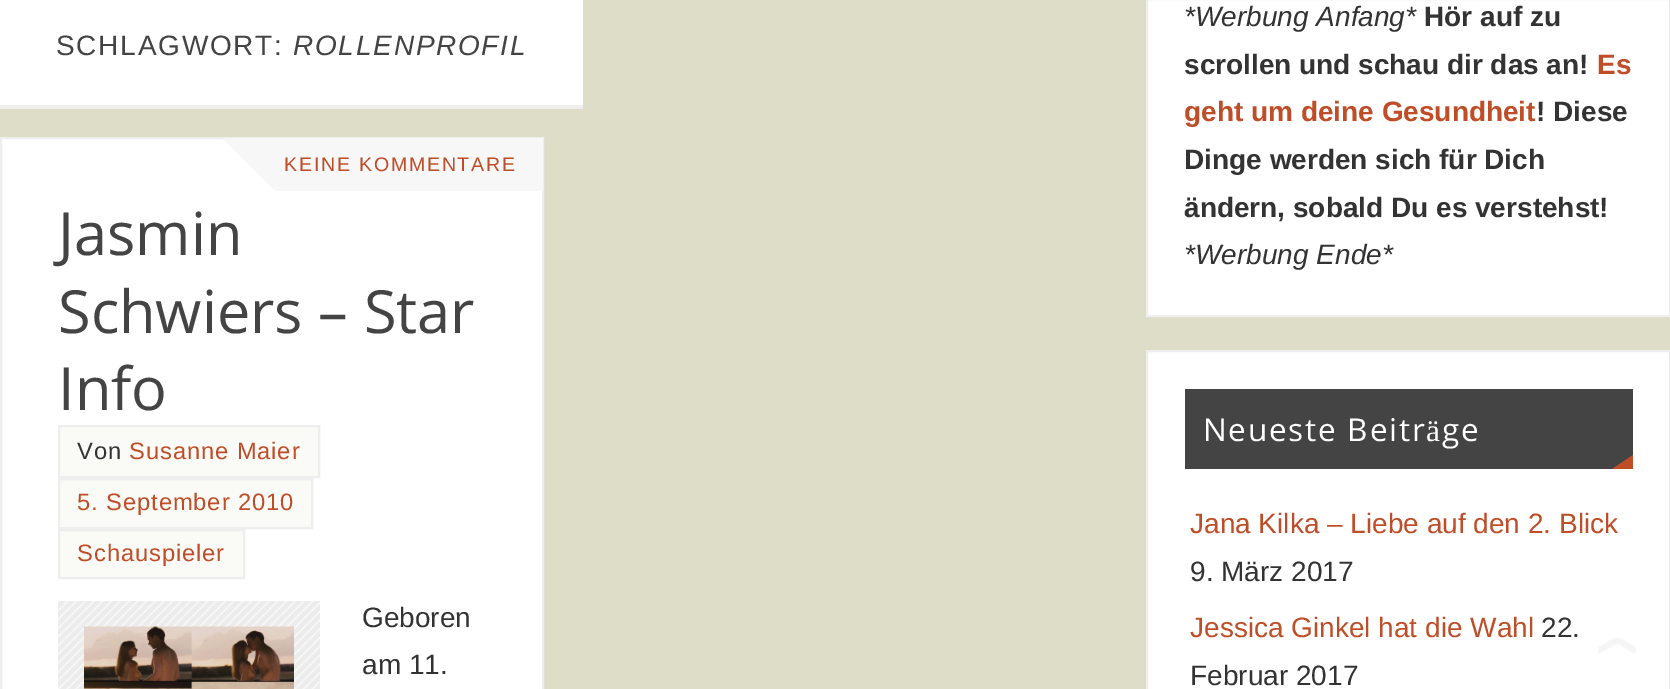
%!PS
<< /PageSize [1670 689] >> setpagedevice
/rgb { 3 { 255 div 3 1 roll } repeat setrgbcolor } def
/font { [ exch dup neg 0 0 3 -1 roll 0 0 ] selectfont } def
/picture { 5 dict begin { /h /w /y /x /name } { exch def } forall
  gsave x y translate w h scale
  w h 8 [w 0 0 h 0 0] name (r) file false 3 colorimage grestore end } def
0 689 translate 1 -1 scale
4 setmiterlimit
221 221 200 rgb
0 0 1670 689 rectfill
255 255 255 rgb
0 0 583 105 rectfill
238 238 238 rgb
0 105 583 4 rectfill
255 255 255 rgb
1 138 moveto 543 138 lineto 543 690 lineto 1 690 lineto closepath gsave fill grestore
238 238 238 rgb
2 setlinewidth
stroke
247 247 247 rgb
275 138 268 53 rectfill
222 138 moveto 275 138 lineto 275 191 lineto closepath fill
250 250 247 rgb
59 426 moveto 319 426 lineto 319 477 lineto 59 477 lineto closepath gsave fill grestore
238 238 238 rgb
stroke
250 250 247 rgb
59 479 moveto 312 479 lineto 312 528 lineto 59 528 lineto closepath gsave fill grestore
238 238 238 rgb
stroke
250 250 247 rgb
59 530 moveto 244 530 lineto 244 578 lineto 59 578 lineto closepath gsave fill grestore
238 238 238 rgb
stroke
(img/1.rgb) 58 601 262 88 picture
(img/2.rgb) 84 626 210 1 picture
255 255 255 rgb
1147 -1 moveto 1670 -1 lineto 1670 316 lineto 1147 316 lineto closepath gsave fill grestore
238 238 238 rgb
stroke
255 255 255 rgb
1147 351 moveto 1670 351 lineto 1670 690 lineto 1147 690 lineto closepath gsave fill grestore
238 238 238 rgb
stroke
68 68 68 rgb
1185 389 448 80 rectfill
191 77 40 rgb
1633 469 moveto 1612 469 lineto 1633 455 lineto closepath fill
(img/3.rgb) 1598 637 38 17 picture
/LiberationSans-Regular 28 font
68 68 68 rgb
56 55 moveto 1.75 0 (SCHLAGWORT:) ashow
/LiberationSans-Italic 28 font
293 55 moveto 1.75 0 (ROLLENPROFIL) ashow
/LiberationSans-Regular 19.6 font
191 77 40 rgb
284 171 moveto 1.75 0 (KEINE KOMMENTARE) ashow
/OpenSans-Regular 59.5 font
68 68 68 rgb
[
  [(Jasmin) 58 255]
  [(Schwiers – Star) 58 333]
  [(Info) 58 410]
] { aload pop moveto show } forall
/LiberationSans-Regular 23.75 font
51 51 51 rgb
77 459 moveto 0.9 0 (Von) ashow
191 77 40 rgb
129 459 moveto 0.9 0 (Susanne Maier) ashow
77 510 moveto 0.9 0 (5. September 2010) ashow
77 561 moveto 0.9 0 (Schauspieler) ashow
/LiberationSans-Regular 28 font
51 51 51 rgb
362 627 moveto (Geboren) show
362 674 moveto (am 11.) show
/LiberationSans-Italic 28 font
1184 26 moveto (*Werbung Anfang*) show
/LiberationSans-Bold 28 font
1424 26 moveto (Hör auf zu) show
1184 74 moveto (scrollen und schau dir das an!) show
191 77 40 rgb
1597 74 moveto (Es) show
1184 121 moveto (geht um deine Gesundheit) show
51 51 51 rgb
[
  [(! Diese) 1536 121]
  [(Dinge werden sich für Dich) 1184 169]
  [(ändern, sobald Du es verstehst!) 1184 217]
] { aload pop moveto show } forall
/LiberationSans-Italic 28 font
1184 264 moveto (*Werbung Ende*) show
/OpenSans-Regular 31.5 font
255 255 255 rgb
1203 441 moveto 1.75 0 (Neueste Beitr) ashow
/LiberationSerif-Regular 31.5 font
1426 441 moveto 1.75 0 (ä) ashow
/OpenSans-Regular 31.5 font
1442 441 moveto 1.75 0 (ge) ashow
/LiberationSans-Regular 28 font
191 77 40 rgb
1190 533 moveto (Jana Kilka – Liebe auf den 2. Blick) show
51 51 51 rgb
1190 581 moveto (9. März 2017) show
191 77 40 rgb
1190 637 moveto (Jessica Ginkel hat die Wahl) show
51 51 51 rgb
1541 637 moveto (22.) show
1190 685 moveto (Februar 2017) show
showpage
